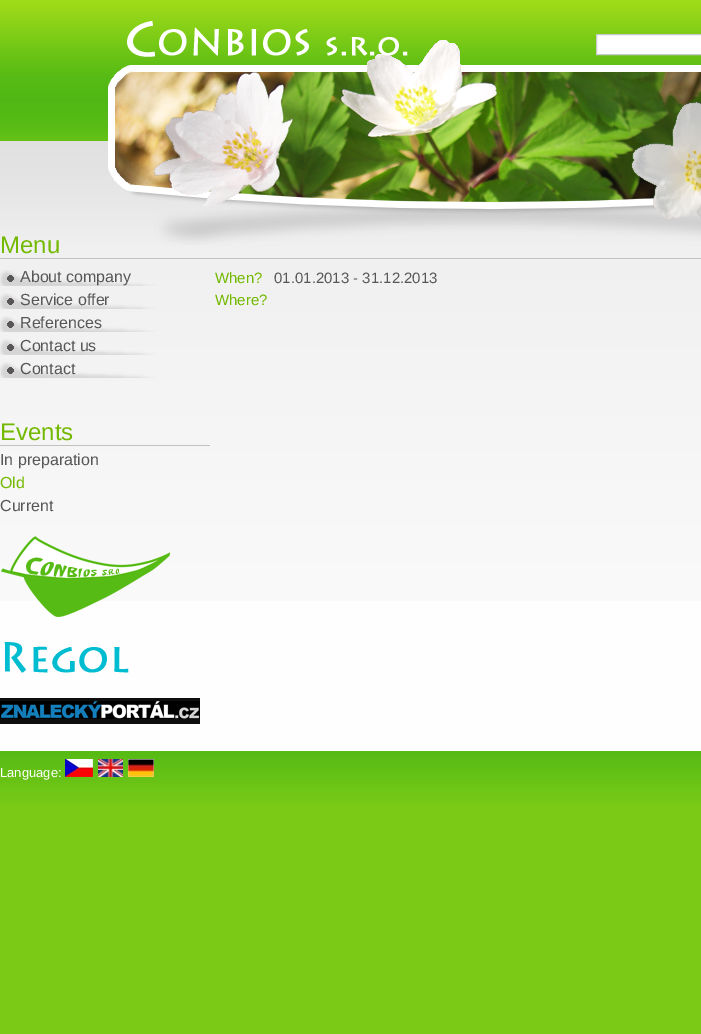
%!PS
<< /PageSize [701 1034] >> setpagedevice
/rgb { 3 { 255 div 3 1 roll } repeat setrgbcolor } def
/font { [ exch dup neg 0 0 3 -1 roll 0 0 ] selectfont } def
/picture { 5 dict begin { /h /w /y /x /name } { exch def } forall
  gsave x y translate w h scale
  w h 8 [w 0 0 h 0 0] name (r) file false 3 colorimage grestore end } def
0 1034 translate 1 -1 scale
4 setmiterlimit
123 203 22 rgb
0 0 701 1034 rectfill
254 254 254 rgb
0 601 701 150 rectfill
(img/1.rgb) 0 0 701 601 picture
(img/2.rgb) 108 21 593 224 picture
255 255 255 rgb
596.5 34.5 moveto 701.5 34.5 lineto 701.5 54.5 lineto 596.5 54.5 lineto closepath gsave fill grestore
199 203 205 rgb
stroke
193 193 193 rgb
0 258 701 1 rectfill
(img/3.rgb) 0 270 156 16 picture
(img/4.rgb) 0 293 156 16 picture
(img/5.rgb) 0 316 156 16 picture
(img/6.rgb) 0 339 156 16 picture
(img/7.rgb) 0 362 156 16 picture
0 445 210 1 rectfill
(img/8.rgb) 1 536 169 81 picture
(img/9.rgb) 4 642 125 31 picture
(img/10.rgb) 0 698 200 26 picture
(img/14.rgb) 0 751 701 60 picture
(img/11.rgb) 65 759 28 18 picture
(img/12.rgb) 98 759 25 18 picture
(img/13.rgb) 128 759 26 18 picture
/LiberationSans-Regular 24 font
115 185 0 rgb
0 253 moveto (Menu) show
/LiberationSans-Regular 16 font
88 86 86 rgb
[
  [(About company) 20 282]
  [(Service offer) 20 305]
  [(References) 20 328]
  [(Contact us) 20 351]
  [(Contact) 20 374]
] { aload pop moveto show } forall
/LiberationSans-Regular 24 font
115 185 0 rgb
0 440 moveto (Events) show
/LiberationSans-Regular 16 font
88 86 86 rgb
0 465 moveto (In preparation) show
115 185 0 rgb
0 488 moveto (Old) show
88 86 86 rgb
0 511 moveto (Current) show
/LiberationSans-Regular 15 font
115 185 0 rgb
215 283 moveto (When?) show
88 86 86 rgb
274 283 moveto (01.01.2013 - 31.12.2013) show
115 185 0 rgb
215 305 moveto (Where?) show
/LiberationSans-Regular 13 font
255 255 255 rgb
0 777 moveto (Language:) show
showpage
